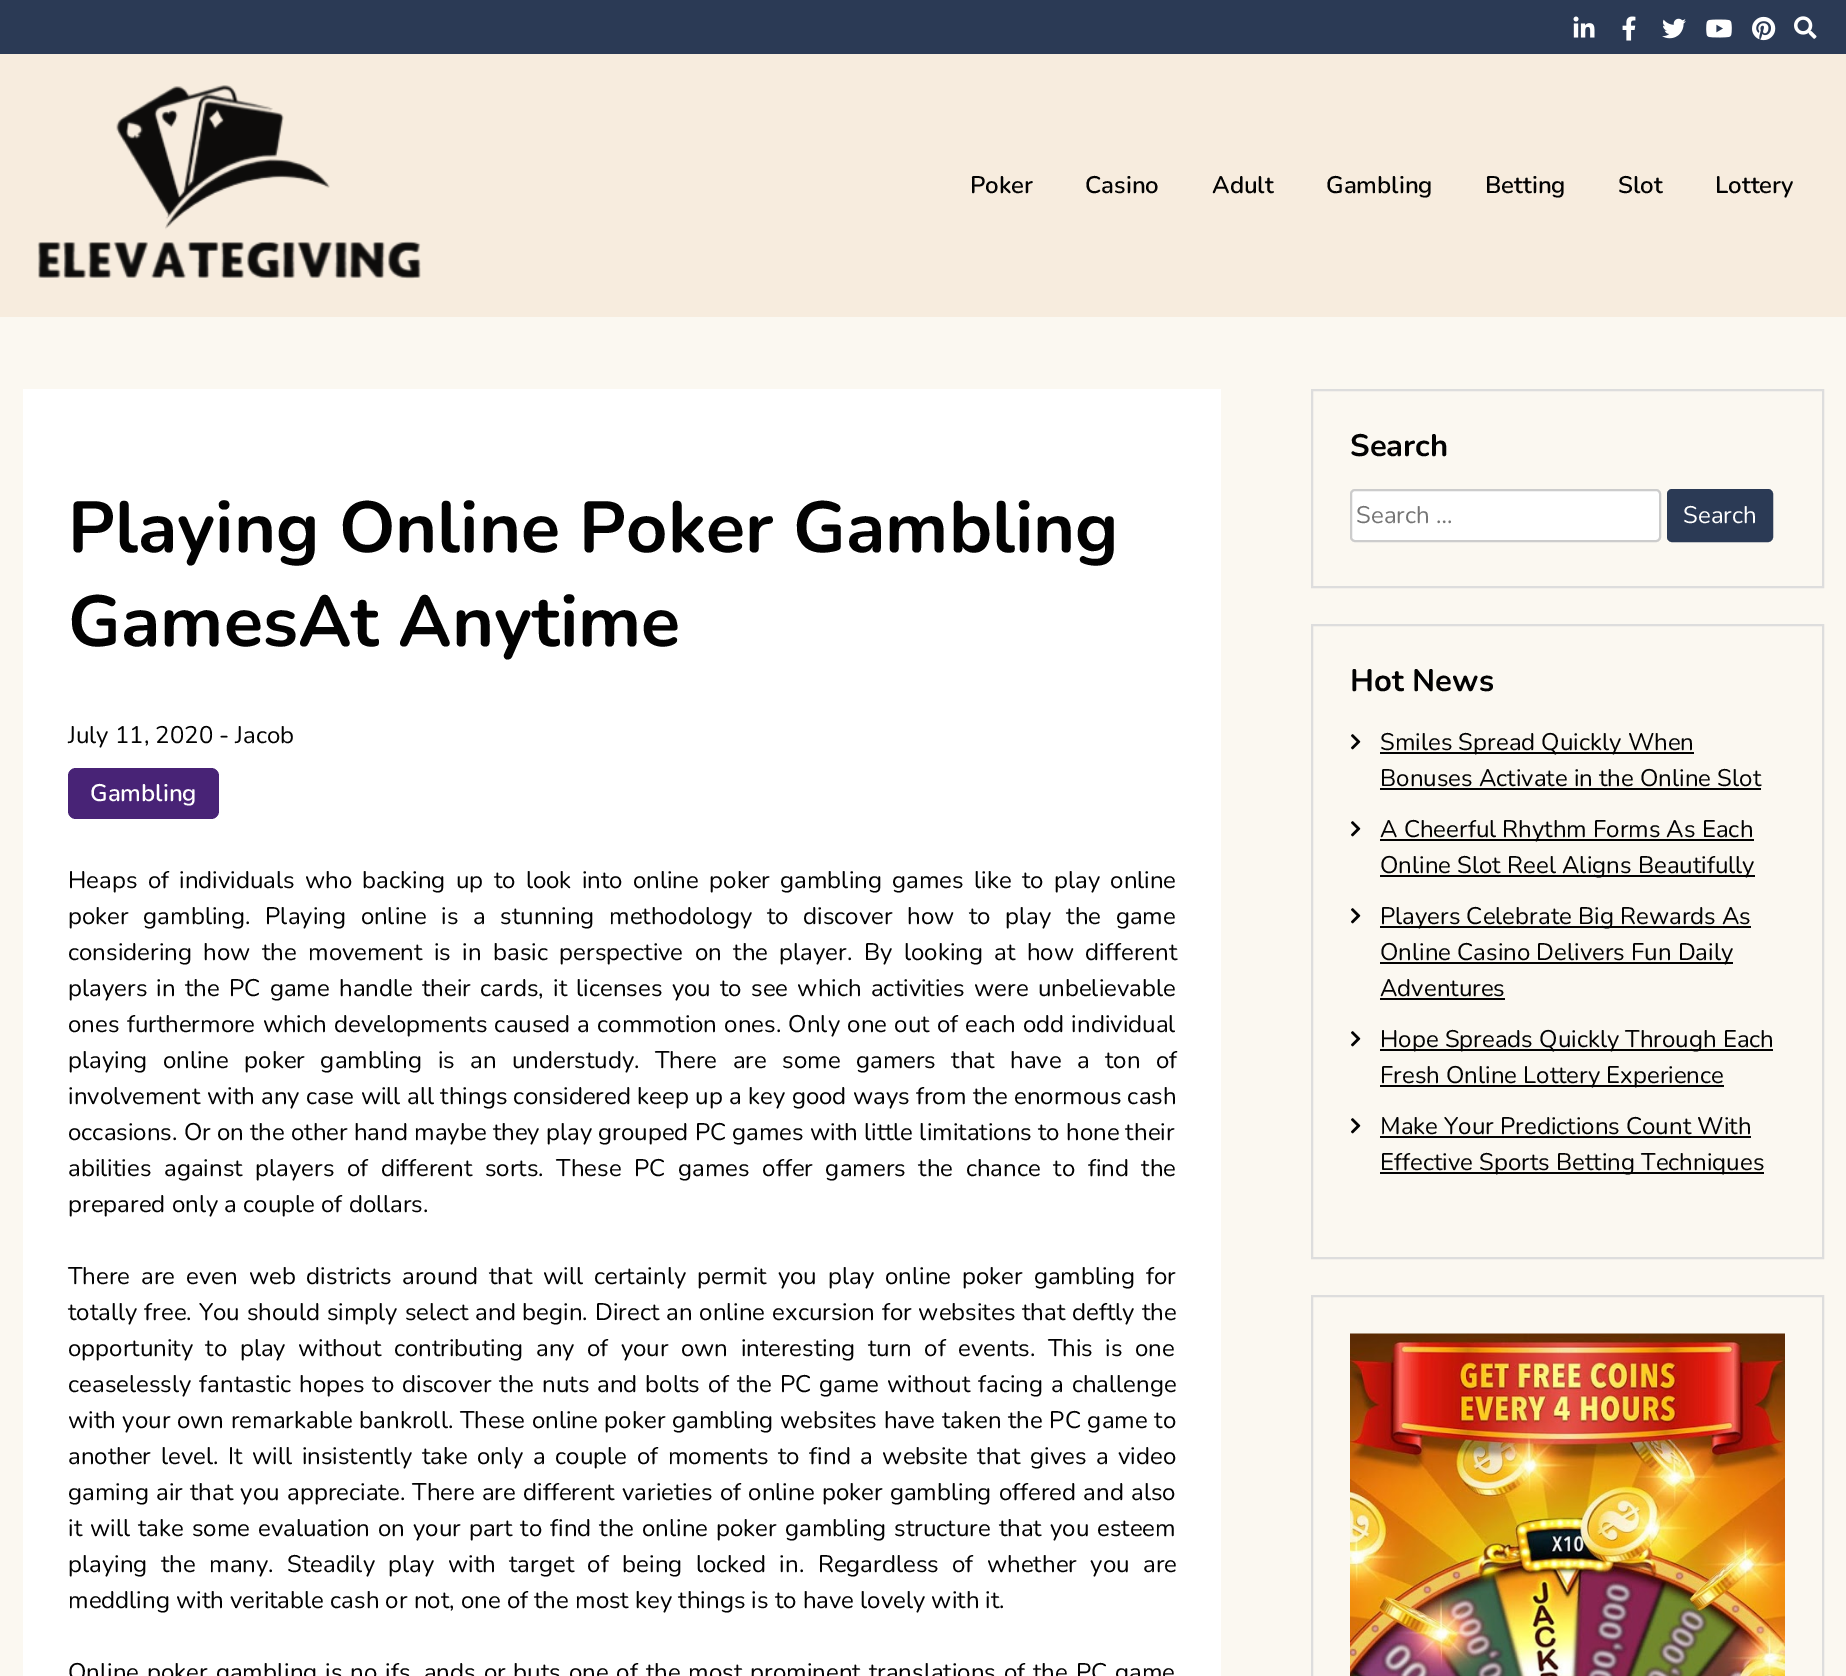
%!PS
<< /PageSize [1846 1676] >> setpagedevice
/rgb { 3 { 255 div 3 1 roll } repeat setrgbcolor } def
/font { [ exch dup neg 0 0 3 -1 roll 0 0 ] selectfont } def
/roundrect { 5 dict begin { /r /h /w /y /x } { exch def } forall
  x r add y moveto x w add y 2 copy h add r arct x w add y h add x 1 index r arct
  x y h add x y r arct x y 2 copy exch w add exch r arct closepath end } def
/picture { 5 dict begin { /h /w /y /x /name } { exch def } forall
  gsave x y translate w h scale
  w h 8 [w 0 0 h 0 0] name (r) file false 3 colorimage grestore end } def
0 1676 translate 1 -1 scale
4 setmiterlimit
251 248 241 rgb
0 0 1846 1676 rectfill
43 58 85 rgb
0 0 1846 54 rectfill
(img/1.rgb) 1573 16 22 22 picture
(img/2.rgb) 1622 16 14 25 picture
(img/3.rgb) 1662 18 24 21 picture
(img/4.rgb) 1706 19 26 19 picture
(img/5.rgb) 1752 16 24 25 picture
(img/6.rgb) 1794 16 23 23 picture
247 236 222 rgb
0 54 1846 263 rectfill
(img/7.rgb) 37 85 384 194 picture
255 255 255 rgb
23 389 1198 1287 rectfill
72 35 118 rgb
68 768 151 51 8 roundrect fill
221 221 221 rgb
2 setlinewidth
1312 390 511 197 rectstroke
255 255 255 rgb
1351 490 309 51 4 roundrect gsave fill grestore
204 204 204 rgb
stroke
43 58 85 rgb
1668 490 104 51 4 roundrect gsave fill grestore
stroke
221 221 221 rgb
1312 625 511 633 rectstroke
(img/8.rgb) 1351 734 10 16 picture
2 2 2 rgb
1380 752 314 2 rectfill
1380 788 381 2 rectfill
(img/8.rgb) 1351 821 10 16 picture
1380 839 374 2 rectfill
1380 875 375 2 rectfill
(img/8.rgb) 1351 908 10 16 picture
[
  [1380 926 371 2 2 2 2]
  [1380 962 353 2 2 2 2]
  [1380 998 125 2 2 2 2]
] { aload pop rgb rectfill } forall
(img/8.rgb) 1351 1031 10 16 picture
1380 1049 393 2 rectfill
1380 1085 344 2 rectfill
(img/8.rgb) 1351 1118 10 16 picture
1380 1136 371 2 rectfill
1380 1172 384 2 rectfill
221 221 221 rgb
1312 1296 511 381 rectstroke
(img/9.rgb) 1350 1333 435 343 picture
/Nunito-SemiBold 24 font
2 2 2 rgb
[
  [(Poker) 970 193]
  [(Casino) 1085 193]
  [(Adult) 1212 193]
  [(Gambling) 1326 193]
  [(Betting) 1485 193]
  [(Slot) 1618 193]
  [(Lottery) 1715 193]
] { aload pop moveto show } forall
/Nunito-Bold 72 font
68 552 moveto (Playing Online Poker Gambling) show
68 646 moveto (GamesAt Anytime) show
/Nunito-Regular 24 font
68 743 moveto (July 11, 2020 - Jacob) show
/Nunito-SemiBold 24 font
255 255 255 rgb
90 801 moveto (Gambling) show
/Nunito-Regular 24 font
2 2 2 rgb
68 888 moveto 4.1 0 32 (Heaps of individuals who backing up to look into online poker gambling games like to play online) widthshow
68 924 moveto 8.5 0 32 (poker gambling. Playing online is a stunning methodology to discover how to play the game) widthshow
68 960 moveto 5.25 0 32 (considering how the movement is in basic perspective on the player. By looking at how different) widthshow
68 996 moveto 3.1 0 32 (players in the PC game handle their cards, it licenses you to see which activities were unbelievable) widthshow
68 1032 moveto 1.1 0 32 (ones furthermore which developments caused a commotion ones. Only one out of each odd individual) widthshow
68 1068 moveto 9.25 0 32 (playing online poker gambling is an understudy. There are some gamers that have a ton of) widthshow
68 1104 moveto 0.2 0 32 (involvement with any case will all things considered keep up a key good ways from the enormous cash) widthshow
68 1140 moveto (occasions. Or on the other hand maybe they play grouped PC games with little limitations to hone their) show
68 1176 moveto 6.4 0 32 (abilities against players of different sorts. These PC games offer gamers the chance to find the) widthshow
68 1212 moveto (prepared only a couple of dollars.) show
68 1284 moveto 4.75 0 32 (There are even web districts around that will certainly permit you play online poker gambling for) widthshow
68 1320 moveto 0.7 0 32 (totally free. You should simply select and begin. Direct an online excursion for websites that deftly the) widthshow
68 1356 moveto 6.25 0 32 (opportunity to play without contributing any of your own interesting turn of events. This is one) widthshow
68 1392 moveto 1.75 0 32 (ceaselessly fantastic hopes to discover the nuts and bolts of the PC game without facing a challenge) widthshow
68 1428 moveto 0.5 0 32 (with your own remarkable bankroll. These online poker gambling websites have taken the PC game to) widthshow
68 1464 moveto 3.4 0 32 (another level. It will insistently take only a couple of moments to find a website that gives a video) widthshow
68 1500 moveto 1.1 0 32 (gaming air that you appreciate. There are different varieties of online poker gambling offered and also) widthshow
68 1536 moveto 1.8 0 32 (it will take some evaluation on your part to find the online poker gambling structure that you esteem) widthshow
68 1572 moveto 7.25 0 32 (playing the many. Steadily play with target of being locked in. Regardless of whether you are) widthshow
68 1608 moveto (meddling with veritable cash or not, one of the most key things is to have lovely with it.) show
68 1680 moveto 1.75 0 32 (Online poker gambling is no ifs, ands or buts one of the most prominent translations of the PC game) widthshow
/Nunito-Bold 31 font
1350 456 moveto (Search) show
/Nunito-Regular 24 font
117 117 117 rgb
1356 523 moveto (Search …) show
255 255 255 rgb
1683 523 moveto (Search) show
/Nunito-Bold 31 font
2 2 2 rgb
1350 691 moveto (Hot News) show
/Nunito-Regular 24 font
[
  [(Smiles Spread Quickly When) 1380 750]
  [(Bonuses Activate in the Online Slot) 1380 786]
  [(A Cheerful Rhythm Forms As Each) 1380 837]
  [(Online Slot Reel Aligns Beautifully) 1380 873]
  [(Players Celebrate Big Rewards As) 1380 924]
  [(Online Casino Delivers Fun Daily) 1380 960]
  [(Adventures) 1380 996]
  [(Hope Spreads Quickly Through Each) 1380 1047]
  [(Fresh Online Lottery Experience) 1380 1083]
  [(Make Your Predictions Count With) 1380 1134]
  [(Effective Sports Betting Techniques) 1380 1170]
] { aload pop moveto show } forall
showpage
